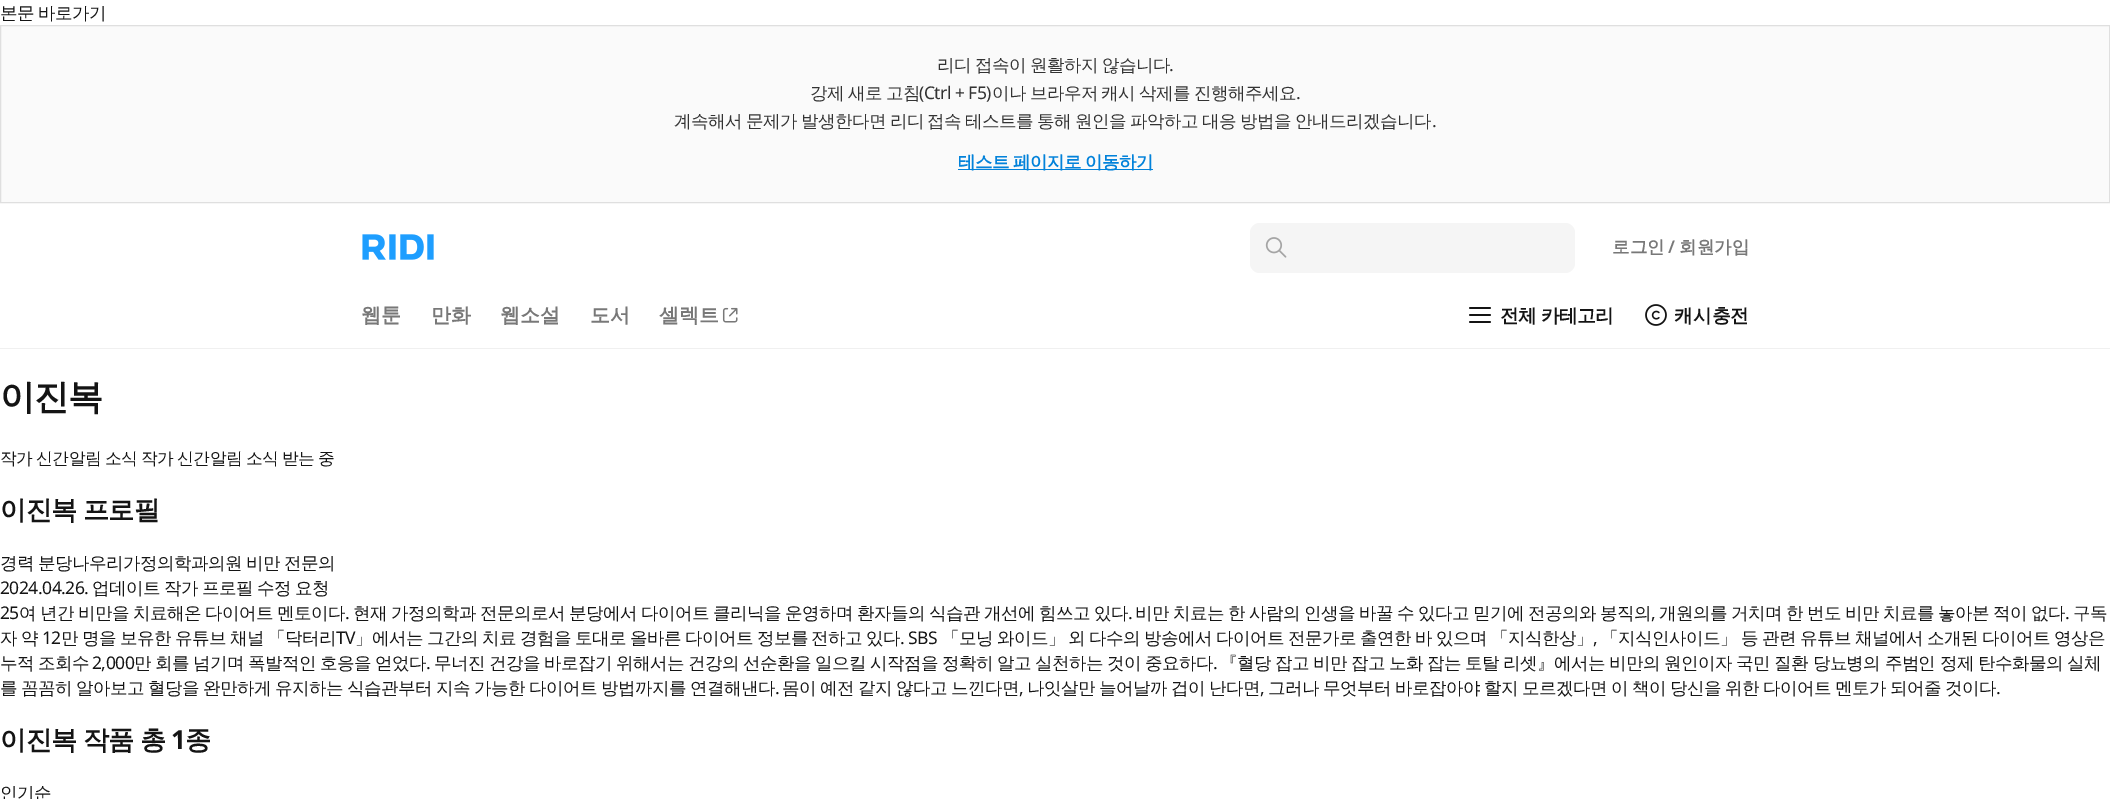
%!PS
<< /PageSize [2110 799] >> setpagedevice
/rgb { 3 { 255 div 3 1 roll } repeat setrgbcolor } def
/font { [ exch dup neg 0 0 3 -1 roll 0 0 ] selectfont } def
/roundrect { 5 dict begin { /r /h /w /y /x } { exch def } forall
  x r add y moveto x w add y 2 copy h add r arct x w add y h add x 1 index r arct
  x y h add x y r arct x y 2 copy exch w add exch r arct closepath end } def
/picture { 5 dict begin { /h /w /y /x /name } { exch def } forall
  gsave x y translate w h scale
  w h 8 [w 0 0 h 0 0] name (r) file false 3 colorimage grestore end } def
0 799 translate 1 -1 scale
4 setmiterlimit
255 255 255 rgb
0 0 2110 799 rectfill
250 250 250 rgb
0.5 25.5 moveto 2109.5 25.5 lineto 2109.5 202.5 lineto 0.5 202.5 lineto closepath gsave fill grestore
223 223 223 rgb
stroke
2 130 218 rgb
958 169 195 1 rectfill
(img/1.rgb) 362 234 72 26 picture
245 245 245 rgb
1250 223 325 50 10 roundrect fill
(img/2.rgb) 1265 237 22 21 picture
(img/3.rgb) 722 307 16 16 picture
20 20 20 rgb
1.8 setlinewidth
1 setlinecap
1 setlinejoin
1470 308 moveto 1490 308 lineto 1470 315 moveto 1490 315 lineto 1470 322 moveto 1490 322 lineto stroke
(img/4.rgb) 1645 304 22 22 picture
240 240 240 rgb
0 348 2110 1 rectfill
/WenQuanYiZenHei-Medium 17.5 font
20 20 20 rgb
0 19 moveto -0.75 0 32 -0.53 0 (본문 바로가기) awidthshow
51 51 51 rgb
937 71 moveto -0.75 0 32 -0.53 0 (리디 접속이 원활하지 않습니다) awidthshow
/NotoSans-Regular 17.5 font
1169 71 moveto -0.53 0 (.) ashow
/WenQuanYiZenHei-Medium 17.5 font
810 99 moveto -0.53 0 (강제) ashow
848 99 moveto -0.53 0 (새로) ashow
886 99 moveto -0.53 0 (고침) ashow
/NotoSans-Regular 17.5 font
919 99 moveto -0.53 0 (\(Ctrl + F5\)) ashow
/WenQuanYiZenHei-Medium 17.5 font
992 99 moveto -0.53 0 (이나) ashow
1030 99 moveto -0.53 0 (브라우저) ashow
1101 99 moveto -0.53 0 (캐시) ashow
1139 99 moveto -0.53 0 (삭제를) ashow
1194 99 moveto -0.53 0 (진행해주세요) ashow
/NotoSans-Regular 17.5 font
1296 99 moveto -0.53 0 (.) ashow
/WenQuanYiZenHei-Medium 17.5 font
674 127 moveto -0.75 0 32 -0.53 0 (계속해서 문제가 발생한다면 리디 접속 테스트를 통해 원인을 파악하고 대응 방법을 안내드리겠습니다) awidthshow
/NotoSans-Regular 17.5 font
1432 127 moveto -0.53 0 (.) ashow
/WenQuanYiZenHei-Bold 17.5 font
2 130 218 rgb
958 168 moveto -0.75 0 32 -0.53 0 (테스트 페이지로 이동하기) awidthshow
120 120 120 rgb
1612 253 moveto (로그인) show
/NotoSans-SemiBold 17.5 font
1668 253 moveto (/) show
/WenQuanYiZenHei-Bold 17.5 font
1679 253 moveto (회원가입) show
/WenQuanYiZenHei-Bold 20 font
[
  [(웹툰) 361 322]
  [(만화) 431 322]
  [(웹소설) 500 322]
  [(도서) 590 322]
  [(셀렉트) 659 322]
] { aload pop moveto show } forall
/WenQuanYiZenHei-Bold 18.75 font
20 20 20 rgb
1500 322 moveto -1 0 32 -0.5 0 (전체 카테고리) awidthshow
1674 322 moveto (캐시충전) show
/WenQuanYiZenHei-Bold 35 font
0 409 moveto -1 0 (이진복) ashow
/WenQuanYiZenHei-Medium 16.75 font
0 464 moveto -1 0 32 -0.5 0 (작가 신간알림) awidthshow
105 464 moveto -0.5 0 (소식) ashow
141 464 moveto -1 0 32 -0.5 0 (작가 신간알림) awidthshow
246 464 moveto -1 0 32 -0.5 0 (소식 받는 중) awidthshow
/WenQuanYiZenHei-Bold 26.25 font
0 519 moveto -1 0 32 -0.75 0 (이진복 프로필) awidthshow
/WenQuanYiZenHei-Medium 17.5 font
0 569 moveto -0.53 0 (경력) ashow
38 569 moveto -0.53 0 (분당나우리가정의학과의원) ashow
246 569 moveto -0.75 0 32 -0.53 0 (비만 전문의) awidthshow
/NotoSans-Regular 17.5 font
0 594 moveto -0.53 0 (2024.04.26.) ashow
/WenQuanYiZenHei-Medium 17.5 font
92 594 moveto -0.53 0 (업데이트) ashow
164 594 moveto -0.5 0 32 -0.53 0 (작가 프로필 수정 요청) awidthshow
/NotoSans-Regular 17.5 font
0 619 moveto -0.53 0 (25) ashow
/WenQuanYiZenHei-Medium 17.5 font
19 619 moveto -0.6 0 32 -0.53 0 (여 년간 비만을 치료해온 다이어트 멘토이다) awidthshow
/NotoSans-Regular 17.5 font
345 619 moveto -0.53 0 (.) ashow
/WenQuanYiZenHei-Medium 17.5 font
353 619 moveto -0.6 0 32 -0.53 0 (현재 가정의학과 전문의로서 분당에서 다이어트 클리닉을 운영하며 환자들의 식습관 개선에 힘쓰고 있다) awidthshow
/NotoSans-Regular 17.5 font
1128 619 moveto -0.53 0 (.) ashow
/WenQuanYiZenHei-Medium 17.5 font
1135 619 moveto -0.6 0 32 -0.53 0 (비만 치료는 한 사람의 인생을 바꿀 수 있다고 믿기에 전공의와 봉직의) awidthshow
/NotoSans-Regular 17.5 font
1651 619 moveto -0.53 0 (,) ashow
/WenQuanYiZenHei-Medium 17.5 font
1659 619 moveto -0.6 0 32 -0.53 0 (개원의를 거치며 한 번도 비만 치료를 놓아본 적이 없다) awidthshow
/NotoSans-Regular 17.5 font
2065 619 moveto -0.53 0 (.) ashow
/WenQuanYiZenHei-Medium 17.5 font
2073 619 moveto -0.53 0 (구독) ashow
0 644 moveto -0.53 0 (자) ashow
21 644 moveto -0.53 0 (약) ashow
/NotoSans-Regular 17.5 font
42 644 moveto -0.53 0 (12) ashow
/WenQuanYiZenHei-Medium 17.5 font
61 644 moveto -0.53 0 (만) ashow
82 644 moveto -0.53 0 (명을) ashow
120 644 moveto -0.53 0 (보유한) ashow
175 644 moveto -0.53 0 (유튜브) ashow
230 644 moveto -0.53 0 (채널) ashow
268 644 moveto -0.53 0 (「닥터리) ashow
/NotoSans-Regular 17.5 font
336 644 moveto -0.53 0 (TV) ashow
/WenQuanYiZenHei-Medium 17.5 font
355 644 moveto -0.53 0 (」에서는) ashow
427 644 moveto -0.53 0 (그간의) ashow
482 644 moveto -0.53 0 (치료) ashow
520 644 moveto -0.53 0 (경험을) ashow
575 644 moveto -0.53 0 (토대로) ashow
630 644 moveto -0.53 0 (올바른) ashow
685 644 moveto -0.53 0 (다이어트) ashow
757 644 moveto -0.53 0 (정보를) ashow
811 644 moveto -0.53 0 (전하고) ashow
866 644 moveto -0.53 0 (있다) ashow
/NotoSans-Regular 17.5 font
900 644 moveto -0.53 0 (. SBS) ashow
/WenQuanYiZenHei-Medium 17.5 font
942 644 moveto -0.53 0 (「모닝) ashow
997 644 moveto -0.53 0 (와이드」) ashow
1068 644 moveto -0.53 0 (외) ashow
1089 644 moveto -0.53 0 (다수의) ashow
1144 644 moveto -0.53 0 (방송에서) ashow
1216 644 moveto -0.53 0 (다이어트) ashow
1288 644 moveto -0.53 0 (전문가로) ashow
1360 644 moveto -0.53 0 (출연한) ashow
1415 644 moveto -0.53 0 (바) ashow
1436 644 moveto -0.53 0 (있으며) ashow
1491 644 moveto -0.53 0 (「지식한상」) ashow
/NotoSans-Regular 17.5 font
1593 644 moveto -0.53 0 (,) ashow
/WenQuanYiZenHei-Medium 17.5 font
1601 644 moveto -0.53 0 (「지식인사이드」) ashow
1741 644 moveto -0.53 0 (등) ashow
1762 644 moveto -0.53 0 (관련) ashow
1800 644 moveto -0.53 0 (유튜브) ashow
1855 644 moveto -0.53 0 (채널에서) ashow
1927 644 moveto -0.53 0 (소개된) ashow
1982 644 moveto -0.53 0 (다이어트) ashow
2054 644 moveto -0.53 0 (영상은) ashow
0 669 moveto -0.6 0 32 -0.53 0 (누적 조회수) awidthshow
/NotoSans-Regular 17.5 font
92 669 moveto -0.53 0 (2,000) ashow
/WenQuanYiZenHei-Medium 17.5 font
134 669 moveto -0.6 0 32 -0.53 0 (만 회를 넘기며 폭발적인 호응을 얻었다) awidthshow
/NotoSans-Regular 17.5 font
426 669 moveto -0.53 0 (.) ashow
/WenQuanYiZenHei-Medium 17.5 font
434 669 moveto -0.6 0 32 -0.53 0 (무너진 건강을 바로잡기 위해서는 건강의 선순환을 일으킬 시작점을 정확히 알고 실천하는 것이 중요하다) awidthshow
/NotoSans-Regular 17.5 font
1213 669 moveto -0.53 0 (.) ashow
/WenQuanYiZenHei-Medium 17.5 font
1220 669 moveto -0.6 0 32 -0.53 0 (『혈당 잡고 비만 잡고 노화 잡는 토탈 리셋』에서는 비만의 원인이자 국민 질환 당뇨병의 주범인 정제 탄수화물의 실체) awidthshow
0 694 moveto -0.6 0 32 -0.53 0 (를 꼼꼼히 알아보고 혈당을 완만하게 유지하는 식습관부터 지속 가능한 다이어트 방법까지를 연결해낸다) awidthshow
/NotoSans-Regular 17.5 font
775 694 moveto -0.53 0 (.) ashow
/WenQuanYiZenHei-Medium 17.5 font
782 694 moveto -0.6 0 32 -0.53 0 (몸이 예전 같지 않다고 느낀다면) awidthshow
/NotoSans-Regular 17.5 font
1019 694 moveto -0.53 0 (,) ashow
/WenQuanYiZenHei-Medium 17.5 font
1027 694 moveto -0.6 0 32 -0.53 0 (나잇살만 늘어날까 겁이 난다면) awidthshow
/NotoSans-Regular 17.5 font
1260 694 moveto -0.53 0 (,) ashow
/WenQuanYiZenHei-Medium 17.5 font
1268 694 moveto -0.6 0 32 -0.53 0 (그러나 무엇부터 바로잡아야 할지 모르겠다면 이 책이 당신을 위한 다이어트 멘토가 되어줄 것이다) awidthshow
/NotoSans-Regular 17.5 font
1996 694 moveto -0.53 0 (.) ashow
/WenQuanYiZenHei-Bold 26.25 font
0 749 moveto -1 0 32 -0.75 0 (이진복 작품 총) awidthshow
/NotoSans-Bold 26.25 font
171 749 moveto -0.75 0 (1) ashow
/WenQuanYiZenHei-Bold 26.25 font
185 749 moveto -0.75 0 (종) ashow
/WenQuanYiZenHei-Medium 17.5 font
0 799 moveto -0.53 0 (인기순) ashow
showpage
